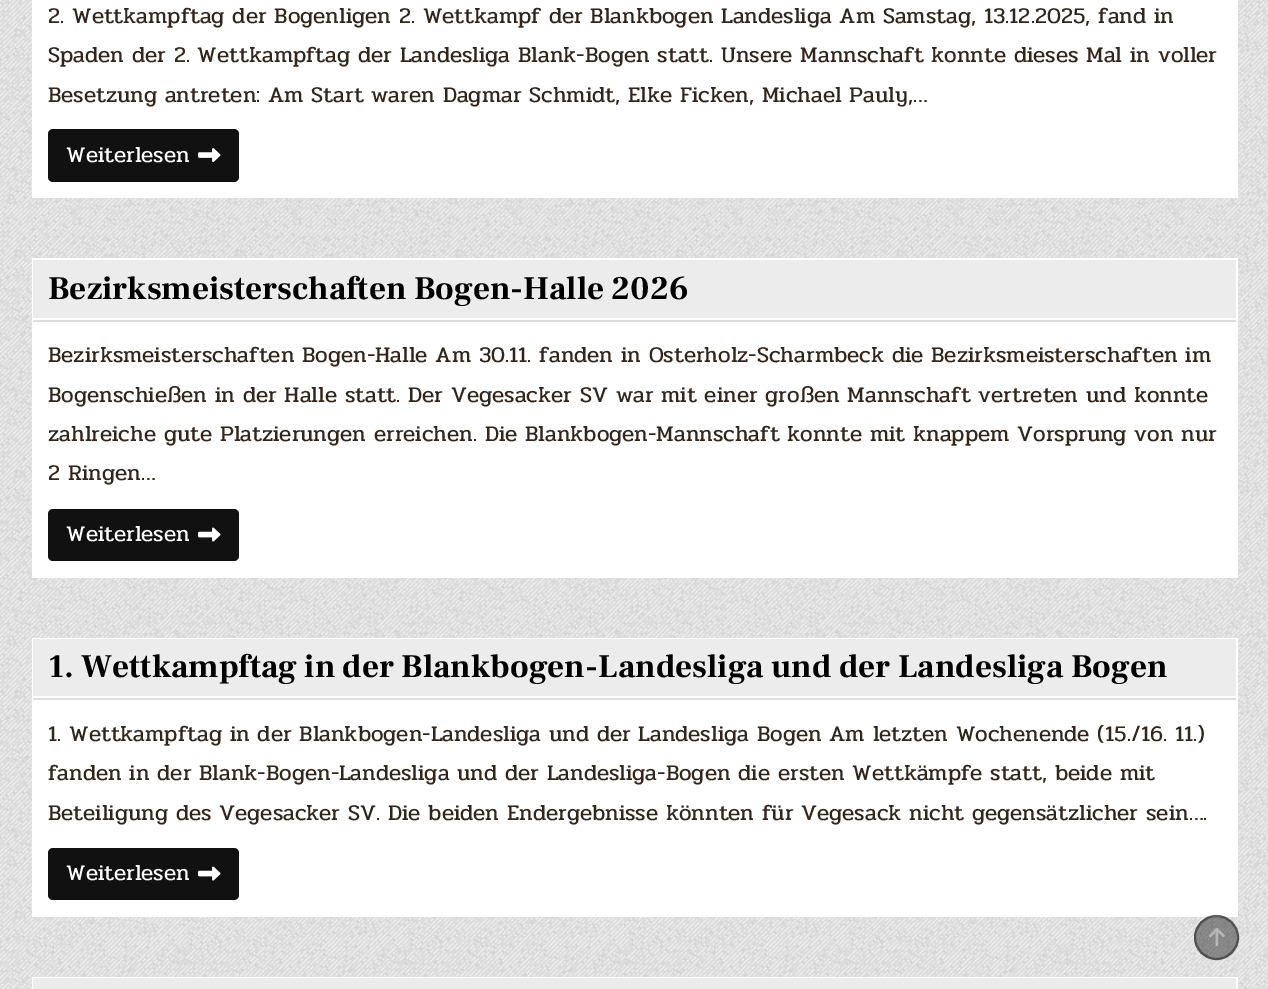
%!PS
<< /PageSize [1268 989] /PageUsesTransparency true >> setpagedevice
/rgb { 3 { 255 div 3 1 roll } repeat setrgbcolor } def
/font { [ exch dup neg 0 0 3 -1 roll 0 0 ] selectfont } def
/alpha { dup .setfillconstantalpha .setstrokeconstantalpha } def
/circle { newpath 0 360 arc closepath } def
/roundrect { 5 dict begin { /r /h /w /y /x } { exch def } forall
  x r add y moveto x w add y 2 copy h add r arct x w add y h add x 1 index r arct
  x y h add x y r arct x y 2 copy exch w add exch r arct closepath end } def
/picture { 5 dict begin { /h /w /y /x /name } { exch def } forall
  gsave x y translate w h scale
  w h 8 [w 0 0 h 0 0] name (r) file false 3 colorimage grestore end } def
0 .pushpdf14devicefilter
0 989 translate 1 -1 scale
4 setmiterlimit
255 255 255 rgb
0 0 1268 989 rectfill
(img/1.rgb) 0 0 1268 989 picture
32 0 1206 198 rectfill
17 17 17 rgb
48 129 191 53 5 roundrect fill
(img/2.rgb) 198 148 23 14 picture
[
  [32 258 1206 320 255 255 255]
  [33 320 1203 2 221 221 221]
  [33 260 1203 58 236 236 236]
] { aload pop rgb rectfill } forall
17 17 17 rgb
48 509 191 52 5 roundrect fill
(img/3.rgb) 198 527 23 15 picture
[
  [32 638 1206 279 255 255 255]
  [33 698 1203 2 221 221 221]
  [33 639 1203 57 236 236 236]
] { aload pop rgb rectfill } forall
17 17 17 rgb
48 848 191 52 5 roundrect fill
(img/3.rgb) 198 866 23 15 picture
255 255 255 rgb
32 977 1206 12 rectfill
236 236 236 rgb
33 978 1203 11 rectfill
0.4 alpha
0 0 0 rgb
1216.5 937.5 22.5 circle fill
2 setlinewidth
1216.5 937.5 21.5 circle stroke
1 alpha
(img/4.rgb) 1209 928 16 19 picture
/Pridi-Regular 22.5 font
49 37 28 rgb
[
  [(2. Wettkampftag der Bogenligen 2. Wettkampf der Blankbogen Landesliga Am Samstag, 13.12.2025, fand in) 48 23]
  [(Spaden der 2. Wettkampftag der Landesliga Blank-Bogen statt. Unsere Mannschaft konnte dieses Mal in voller) 48 62]
  [(Besetzung antreten: Am Start waren Dagmar Schmidt, Elke Ficken, Michael Pauly,…) 48 102]
] { aload pop moveto show } forall
255 255 255 rgb
66 162 moveto (Weiterlesen) show
/FrankRuhlLibre-Bold 33 font
0 0 0 rgb
48 299 moveto (Bezirksmeisterschaften Bogen-Halle 2026) show
/Pridi-Regular 22.5 font
49 37 28 rgb
[
  [(Bezirksmeisterschaften Bogen-Halle Am 30.11. fanden in Osterholz-Scharmbeck die Bezirksmeisterschaften im) 48 362]
  [(Bogenschießen in der Halle statt. Der Vegesacker SV war mit einer großen Mannschaft vertreten und konnte) 48 402]
  [(zahlreiche gute Platzierungen erreichen. Die Blankbogen-Mannschaft konnte mit knappem Vorsprung von nur) 48 441]
  [(2 Ringen…) 48 480]
] { aload pop moveto show } forall
255 255 255 rgb
66 541 moveto (Weiterlesen) show
/FrankRuhlLibre-Bold 33 font
0 0 0 rgb
48 677 moveto (1. Wettkampftag in der Blankbogen-Landesliga und der Landesliga Bogen) show
/Pridi-Regular 22.5 font
49 37 28 rgb
[
  [(1. Wettkampftag in der Blankbogen-Landesliga und der Landesliga Bogen Am letzten Wochenende \(15./16. 11.\)) 48 741]
  [(fanden in der Blank-Bogen-Landesliga und der Landesliga-Bogen die ersten Wettkämpfe statt, beide mit) 48 780]
  [(Beteiligung des Vegesacker SV. Die beiden Endergebnisse könnten für Vegesack nicht gegensätzlicher sein….) 48 820]
] { aload pop moveto show } forall
255 255 255 rgb
66 880 moveto (Weiterlesen) show
.poppdf14devicefilter showpage
